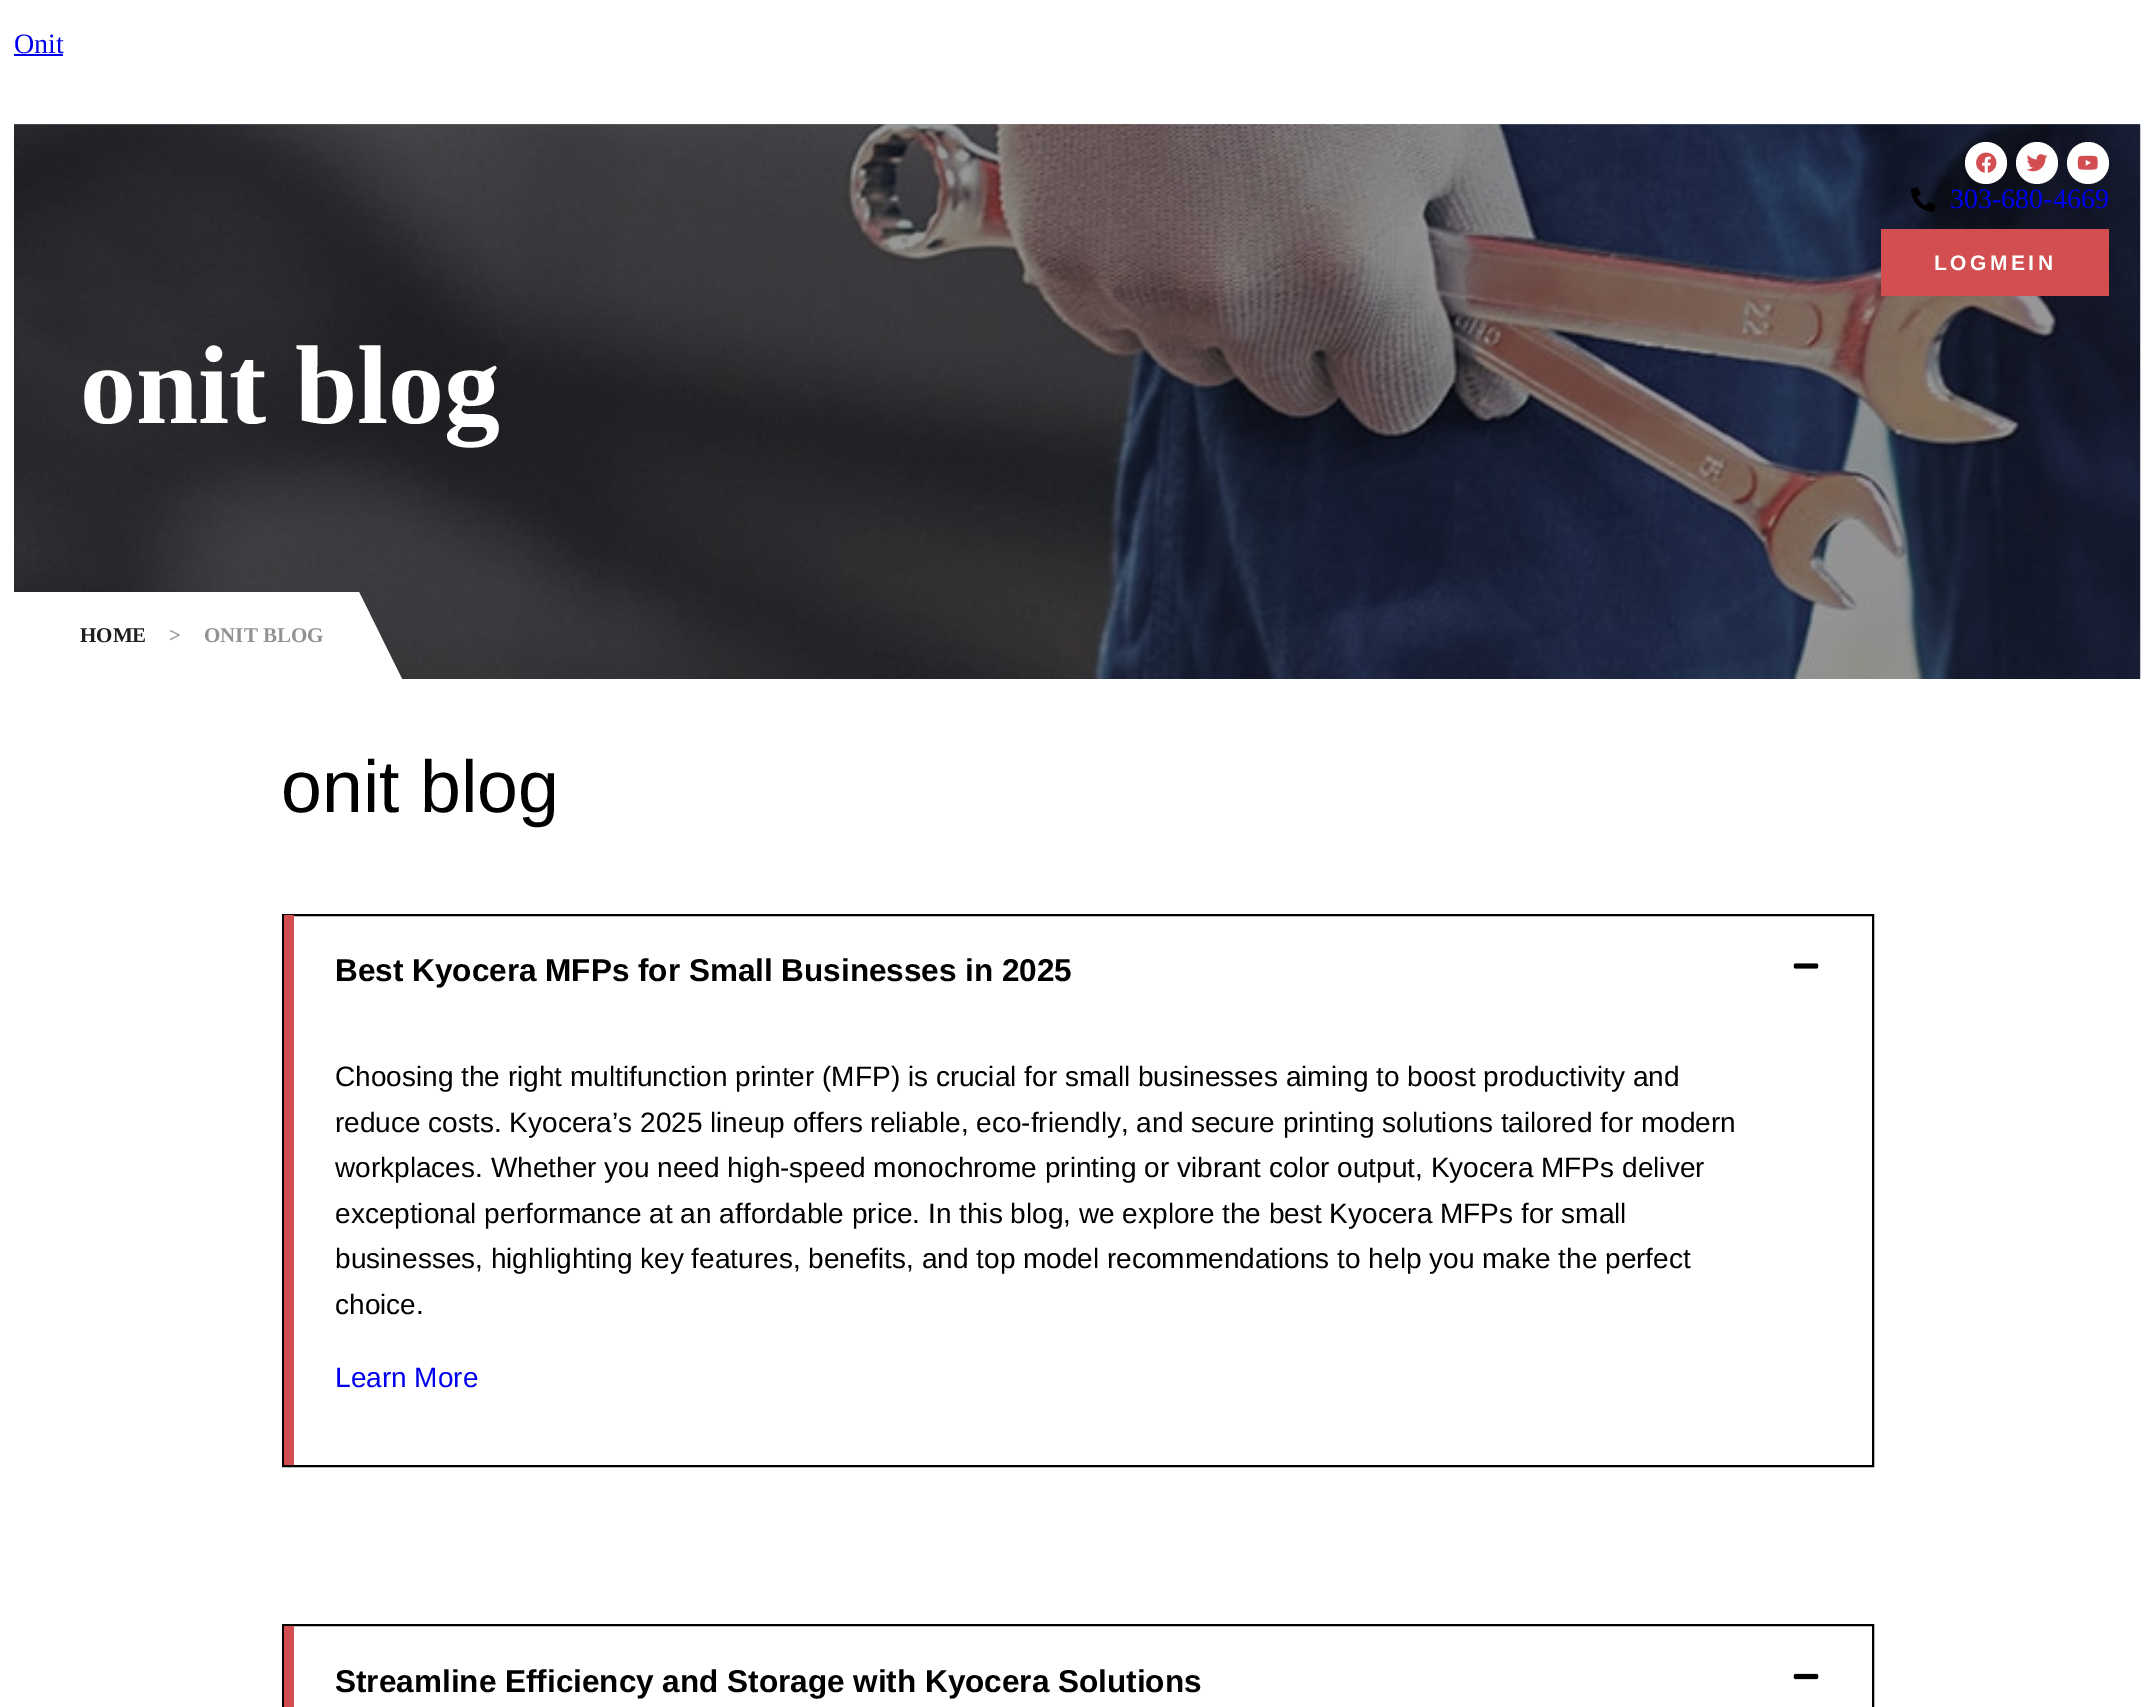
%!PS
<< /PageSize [2153 1707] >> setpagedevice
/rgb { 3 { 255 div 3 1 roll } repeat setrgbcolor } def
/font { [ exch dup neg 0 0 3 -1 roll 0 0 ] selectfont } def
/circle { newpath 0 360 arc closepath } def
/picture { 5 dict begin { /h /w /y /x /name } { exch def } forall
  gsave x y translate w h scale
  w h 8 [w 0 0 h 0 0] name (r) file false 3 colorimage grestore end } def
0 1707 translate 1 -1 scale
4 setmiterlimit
255 255 255 rgb
0 0 2153 1707 rectfill
0 0 238 rgb
14 54 49 2 rectfill
(img/5.rgb) 14 124 2127 555 picture
255 255 255 rgb
1986 163 21 circle fill
(img/1.rgb) 1976 152 21 21 picture
2037 163 21 circle fill
(img/2.rgb) 2027 154 21 18 picture
2088 163 21 circle fill
(img/3.rgb) 2077 155 21 15 picture
(img/4.rgb) 1911 187 25 25 picture
210 78 80 rgb
1881 229 228 67 rectfill
255 255 255 rgb
14 592 67 87 rectfill
81 592 moveto 359 592 lineto 402 679 lineto 81 679 lineto closepath fill
0 0 0 rgb
2 setlinewidth
283 915 1590 551 rectstroke
210 78 80 rgb
284 915 10 550 rectfill
(img/6.rgb) 1793 963 26 6 picture
0 0 0 rgb
283 1625 1590 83 rectstroke
210 78 80 rgb
284 1626 10 81 rectfill
(img/7.rgb) 1793 1673 26 7 picture
/LiberationSerif-Regular 28 font
0 0 238 rgb
14 53 moveto (Onit) show
1950 208 moveto (303-680-4669) show
/LiberationSans-Bold 21 font
255 255 255 rgb
1934 270 moveto 3.5 0 (LOGMEIN) ashow
/LiberationSerif-Bold 112 font
80 423 moveto (onit blog) show
/LiberationSerif-Bold 21 font
30 30 30 rgb
80 642 moveto (HOME) show
146 146 146 rgb
169 642 moveto (>) show
204 642 moveto (ONIT BLOG) show
/LiberationSans-Regular 73.5 font
0 0 0 rgb
281 812 moveto (onit blog) show
/LiberationSans-Bold 31.5 font
335 981 moveto (Best Kyocera MFPs for Small Businesses in 2025) show
/LiberationSans-Regular 28 font
[
  [(Choosing the right multifunction printer \(MFP\) is crucial for small businesses aiming to boost productivity and) 335 1086]
  [(reduce costs. Kyocera’s 2025 lineup offers reliable, eco-friendly, and secure printing solutions tailored for modern) 335 1132]
  [(workplaces. Whether you need high-speed monochrome printing or vibrant color output, Kyocera MFPs deliver) 335 1177]
  [(exceptional performance at an affordable price. In this blog, we explore the best Kyocera MFPs for small) 335 1223]
  [(businesses, highlighting key features, benefits, and top model recommendations to help you make the perfect) 335 1268]
  [(choice.) 335 1314]
] { aload pop moveto show } forall
0 0 238 rgb
335 1387 moveto (Learn More) show
/LiberationSans-Bold 31.5 font
0 0 0 rgb
335 1692 moveto (Streamline Efficiency and Storage with Kyocera Solutions) show
showpage
